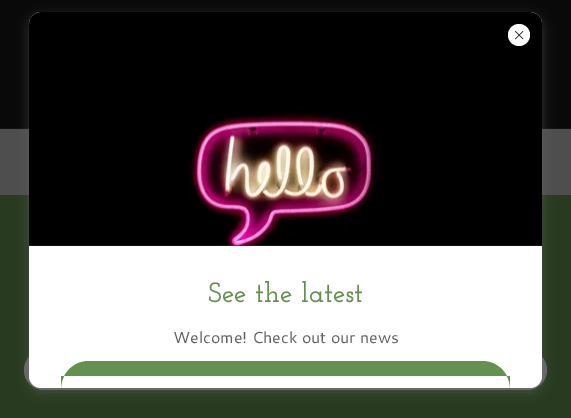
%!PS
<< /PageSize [571 418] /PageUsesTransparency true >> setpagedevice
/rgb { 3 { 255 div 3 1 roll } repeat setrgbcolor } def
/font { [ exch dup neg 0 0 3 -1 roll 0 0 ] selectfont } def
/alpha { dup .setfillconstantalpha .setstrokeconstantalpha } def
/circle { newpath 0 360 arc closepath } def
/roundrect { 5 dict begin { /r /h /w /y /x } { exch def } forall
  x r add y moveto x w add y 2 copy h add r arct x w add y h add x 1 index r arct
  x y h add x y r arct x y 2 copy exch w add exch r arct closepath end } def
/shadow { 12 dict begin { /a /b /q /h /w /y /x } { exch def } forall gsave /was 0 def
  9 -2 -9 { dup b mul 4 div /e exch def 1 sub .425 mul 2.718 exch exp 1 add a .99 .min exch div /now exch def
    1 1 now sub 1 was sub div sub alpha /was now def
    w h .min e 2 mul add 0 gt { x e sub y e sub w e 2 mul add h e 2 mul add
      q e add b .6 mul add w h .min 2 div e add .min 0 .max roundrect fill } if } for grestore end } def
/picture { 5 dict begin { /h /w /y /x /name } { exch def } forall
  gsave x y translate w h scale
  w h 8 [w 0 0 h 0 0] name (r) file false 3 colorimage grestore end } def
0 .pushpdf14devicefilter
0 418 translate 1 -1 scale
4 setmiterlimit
9 9 9 rgb
0 0 571 418 rectfill
[
  [0 128 571 1 17 17 17]
  [0 129 571 66 78 78 78]
  [0 195 571 223 40 58 32]
] { aload pop rgb rectfill } forall
102 102 102 rgb
24 350 523 40 20 roundrect fill
117 117 117 rgb
29 16 513 376 12 6 0.4 shadow
255 255 255 rgb
29 12 513 376 12 roundrect fill
(img/2.rgb) 29 12 513 234 picture
519 35 11 circle fill
(img/1.rgb) 515 31 9 9 picture
101 145 80 rgb
89 361 moveto 482 361 lineto 497.5 361 510 373.5 510 389 curveto 510 376 lineto 61 376 lineto 61 389 lineto 61 373.5 73.5 361 89 361 curveto closepath fill
/JosefinSlab-Thin 28 font
208 302 moveto (See the latest) show
/Cantarell-Regular 16 font
94 94 94 rgb
173 343 moveto (Welcome! Check out our news) show
.poppdf14devicefilter showpage
